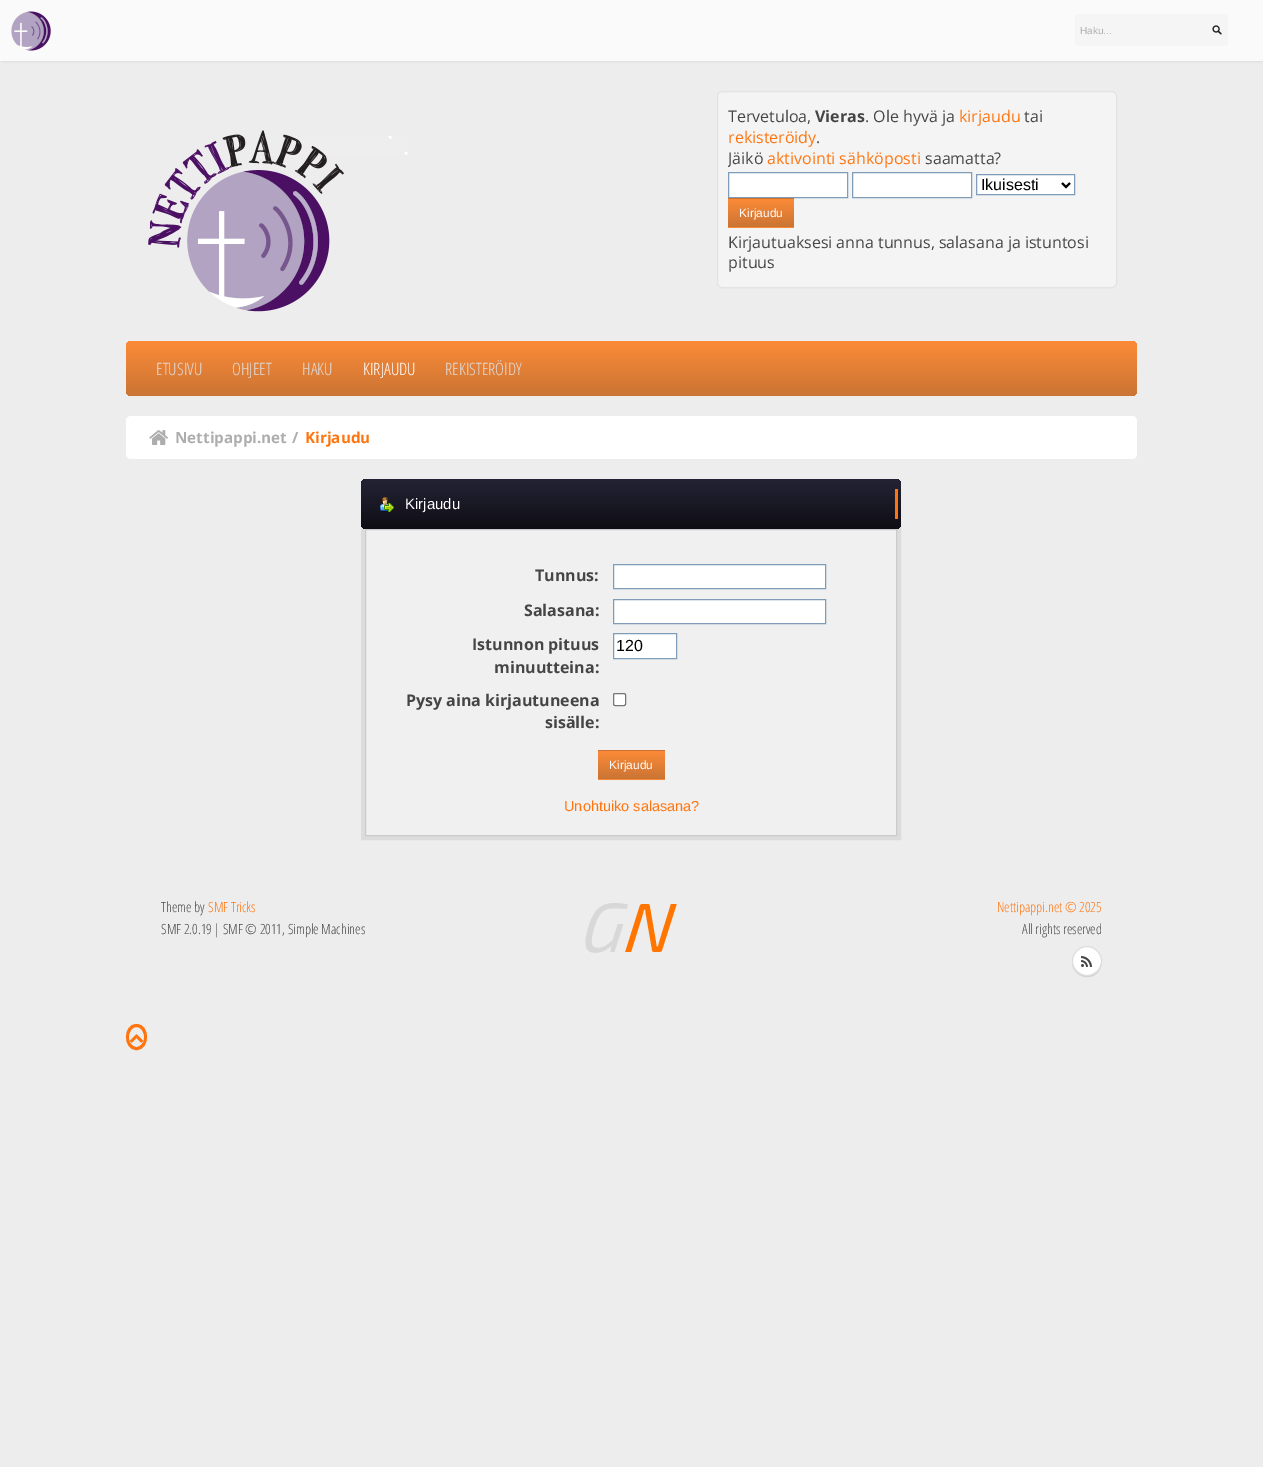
%!PS
<< /PageSize [1263 1467] /PageUsesTransparency true >> setpagedevice
/rgb { 3 { 255 div 3 1 roll } repeat setrgbcolor } def
/font { [ exch dup neg 0 0 3 -1 roll 0 0 ] selectfont } def
/alpha { dup .setfillconstantalpha .setstrokeconstantalpha } def
/circle { newpath 0 360 arc closepath } def
/roundrect { 5 dict begin { /r /h /w /y /x } { exch def } forall
  x r add y moveto x w add y 2 copy h add r arct x w add y h add x 1 index r arct
  x y h add x y r arct x y 2 copy exch w add exch r arct closepath end } def
/shadow { 12 dict begin { /a /b /q /h /w /y /x } { exch def } forall gsave /was 0 def
  9 -2 -9 { dup b mul 4 div /e exch def 1 sub .425 mul 2.718 exch exp 1 add a .99 .min exch div /now exch def
    1 1 now sub 1 was sub div sub alpha /was now def
    w h .min e 2 mul add 0 gt { x e sub y e sub w e 2 mul add h e 2 mul add
      q e add b .6 mul add w h .min 2 div e add .min 0 .max roundrect fill } if } for grestore end } def
/picture { 5 dict begin { /h /w /y /x /name } { exch def } forall
  gsave x y translate w h scale
  w h 8 [w 0 0 h 0 0] name (r) file false 3 colorimage grestore end } def
0 .pushpdf14devicefilter
0 1467 translate 1 -1 scale
4 setmiterlimit
237 237 237 rgb
0 0 1263 1467 rectfill
(img/1.rgb) 295 136 113 19 picture
0 0 0 rgb
2 0 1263 61 0 1.5 0.1 shadow
250 250 250 rgb
0 0 1263 61 rectfill
(img/2.rgb) 11 11 40 40 picture
245 245 245 rgb
1075 14 153 32 4 roundrect fill
(img/3.rgb) 1212 25 10 10 picture
(img/4.rgb) 148 130 196 182 picture
244 244 244 rgb
717 91 400 197 5 roundrect fill
0.07 alpha
0 0 0 rgb
717.5 91.5 399 196 4.5 roundrect stroke
1 alpha
255 255 255 rgb
728.5 172.5 moveto 847.5 172.5 lineto 847.5 197.5 lineto 728.5 197.5 lineto closepath gsave fill grestore
127 157 185 rgb
stroke
255 255 255 rgb
852.5 172.5 moveto 971.5 172.5 lineto 971.5 197.5 lineto 852.5 197.5 lineto closepath gsave fill grestore
127 157 185 rgb
stroke
255 255 255 rgb
976.5 174.5 moveto 1074.5 174.5 lineto 1074.5 194.5 lineto 976.5 194.5 lineto closepath gsave fill grestore
127 157 185 rgb
stroke
0 0 0 rgb
2 setlinewidth
1062 183 moveto 1066 187 lineto 1070 183 lineto stroke
gsave
728 198 66 30 3 roundrect clip newpath
gsave 728 198 moveto 794 198 lineto 794 199 lineto 728 199 lineto closepath clip newpath
<< /ShadingType 2 /ColorSpace /DeviceRGB /Coords [761 171 761 199] /Extend [true true] /Function << /FunctionType 2 /Domain [0 1] /C0 [0.988 0.545 0.22] /C1 [0.792 0.455 0.204] /N 1 >> >> shfill grestore
gsave 728 199 moveto 794 199 lineto 794 227 lineto 728 227 lineto closepath clip newpath
<< /ShadingType 2 /ColorSpace /DeviceRGB /Coords [761 199 761 227] /Extend [true true] /Function << /FunctionType 2 /Domain [0 1] /C0 [0.988 0.545 0.22] /C1 [0.792 0.455 0.204] /N 1 >> >> shfill grestore
gsave 728 227 moveto 794 227 lineto 794 228 lineto 728 228 lineto closepath clip newpath
<< /ShadingType 2 /ColorSpace /DeviceRGB /Coords [761 227 761 255] /Extend [true true] /Function << /FunctionType 2 /Domain [0 1] /C0 [0.988 0.545 0.22] /C1 [0.792 0.455 0.204] /N 1 >> >> shfill grestore
grestore
gsave 126 341 1011 55 5 roundrect clip newpath
<< /ShadingType 2 /ColorSpace /DeviceRGB /Coords [632 341 632 396] /Extend [true true] /Function << /FunctionType 2 /Domain [0 1] /C0 [0.988 0.545 0.22] /C1 [0.792 0.455 0.204] /N 1 >> >> shfill grestore
255 255 255 rgb
126 416 1011 43 5 roundrect fill
(img/5.rgb) 149 430 19 15 picture
220 220 220 rgb
4 setlinewidth
363 527 536 311 rectstroke
gsave 361 479 540 50 5 roundrect clip newpath
<< /ShadingType 2 /ColorSpace /DeviceRGB /Coords [631 479 631 529] /Extend [true true] /Function << /FunctionType 2 /Domain [0 1] /C0 [0.137 0.137 0.208] /C1 [0.059 0.055 0.078] /N 1 >> >> shfill grestore
255 116 14 rgb
895 489 3 30 rectfill
(img/6.rgb) 380 497 14 16 picture
240 240 240 rgb
365.5 529.5 moveto 896.5 529.5 lineto 896.5 835.5 lineto 365.5 835.5 lineto closepath gsave fill grestore
203 203 203 rgb
1 setlinewidth
stroke
255 255 255 rgb
613.5 564.5 moveto 825.5 564.5 lineto 825.5 588.5 lineto 613.5 588.5 lineto closepath gsave fill grestore
127 157 185 rgb
stroke
255 255 255 rgb
613.5 599.5 moveto 825.5 599.5 lineto 825.5 623.5 lineto 613.5 623.5 lineto closepath gsave fill grestore
127 157 185 rgb
stroke
255 255 255 rgb
613.5 633.5 moveto 676.5 633.5 lineto 676.5 658.5 lineto 613.5 658.5 lineto closepath gsave fill grestore
127 157 185 rgb
stroke
255 255 255 rgb
613.5 693.5 12 12 1.5 roundrect gsave fill grestore
118 118 118 rgb
stroke
gsave
598 750 67 30 3 roundrect clip newpath
gsave 598 750 moveto 665 750 lineto 665 751 lineto 598 751 lineto closepath clip newpath
<< /ShadingType 2 /ColorSpace /DeviceRGB /Coords [632 723 632 751] /Extend [true true] /Function << /FunctionType 2 /Domain [0 1] /C0 [0.988 0.545 0.22] /C1 [0.792 0.455 0.204] /N 1 >> >> shfill grestore
gsave 598 751 moveto 665 751 lineto 665 779 lineto 598 779 lineto closepath clip newpath
<< /ShadingType 2 /ColorSpace /DeviceRGB /Coords [632 751 632 779] /Extend [true true] /Function << /FunctionType 2 /Domain [0 1] /C0 [0.988 0.545 0.22] /C1 [0.792 0.455 0.204] /N 1 >> >> shfill grestore
gsave 598 779 moveto 665 779 lineto 665 780 lineto 598 780 lineto closepath clip newpath
<< /ShadingType 2 /ColorSpace /DeviceRGB /Coords [632 779 632 807] /Extend [true true] /Function << /FunctionType 2 /Domain [0 1] /C0 [0.988 0.545 0.22] /C1 [0.792 0.455 0.204] /N 1 >> >> shfill grestore
grestore
(img/7.rgb) 585 903 92 50 picture
210 210 210 rgb
1072 961.5 moveto 1071.5 976.5 1091 983 1099.5 970.5 curveto 1101 968 1102 964.5 1102 961.5 curveto 1101.5 980.5 1072.5 980.5 1072 961.5 curveto closepath fill
255 255 255 rgb
1087 961 14.5 circle gsave fill grestore
221 221 221 rgb
stroke
(img/8.rgb) 1081 956 11 11 picture
255 116 14 rgb
3 setlinewidth
136.5 1025.5 moveto 148.5 1025.5 148.5 1048.5 136.5 1048.5 curveto 124.5 1048.5 124.5 1025.5 136.5 1025.5 curveto closepath stroke
(img/9.rgb) 129 1034 15 9 picture
/LiberationSans-Regular 10 font
173 173 173 rgb
1080 34 moveto (Haku...) show
/OpenSans-Regular 16 font
69 69 69 rgb
728 122 moveto (Tervetuloa,) show
/OpenSans-Bold 16 font
815 122 moveto (Vieras) show
/OpenSans-Regular 16 font
865 122 moveto (. Ole hyvä ja) show
255 116 14 rgb
959 122 moveto (kirjaudu) show
69 69 69 rgb
1024 122 moveto (tai) show
255 116 14 rgb
728 143 moveto (rekisteröidy) show
69 69 69 rgb
816 143 moveto (.) show
gsave
728 102 378 175 rectclip
728 164 moveto (Jäikö) show
grestore
255 116 14 rgb
767 164 moveto (aktivointi sähköposti) show
69 69 69 rgb
925 164 moveto (saamatta?) show
/LiberationSans-Regular 16 font
0 0 0 rgb
981 190 moveto (Ikuisesti) show
/LiberationSans-Regular 12 font
255 255 255 rgb
739 217 moveto (Kirjaudu) show
/OpenSans-Regular 16 font
69 69 69 rgb
728 248 moveto (Kirjautuaksesi anna tunnus, salasana ja istuntosi) show
728 268 moveto (pituus) show
/OpenSansCondensed-Light 17 font
221 221 221 rgb
[
  [(ETUSIVU) 156 375]
  [(OHJEET) 232 375]
  [(HAKU) 302 375]
] { aload pop moveto show } forall
255 255 255 rgb
363 375 moveto (KIRJAUDU) show
221 221 221 rgb
445 375 moveto (REKISTERÖIDY) show
/OpenSans-Bold 15.25 font
173 173 173 rgb
175 443 moveto (Nettipappi.net) show
292 443 moveto (/) show
255 116 14 rgb
305 443 moveto (Kirjaudu) show
/LiberationSans-Regular 15 font
255 255 255 rgb
405 509 moveto (Kirjaudu) show
/OpenSans-Bold 16 font
69 69 69 rgb
[
  [(Tunnus:) 535 581]
  [(Salasana:) 524 616]
  [(Istunnon pituus) 472 650]
  [(minuutteina:) 494 673]
] { aload pop moveto show } forall
/LiberationSans-Regular 16 font
0 0 0 rgb
616 651 moveto (120) show
/OpenSans-Bold 16 font
69 69 69 rgb
406 706 moveto (Pysy aina kirjautuneena) show
545 728 moveto (sisälle:) show
/LiberationSans-Regular 12 font
255 255 255 rgb
609 769 moveto (Kirjaudu) show
/LiberationSans-Regular 14.5 font
255 116 14 rgb
564 811 moveto (Unohtuiko salasana?) show
/OpenSansCondensed-Light 14 font
69 69 69 rgb
161 912 moveto (Theme by) show
255 116 14 rgb
208 912 moveto (SMF Tricks) show
69 69 69 rgb
161 934 moveto (SMF 2.0.19 | SMF © 2011, Simple Machines) show
255 116 14 rgb
997 912 moveto (Nettipappi.net © 2025) show
69 69 69 rgb
1022 934 moveto (All rights reserved) show
.poppdf14devicefilter showpage
